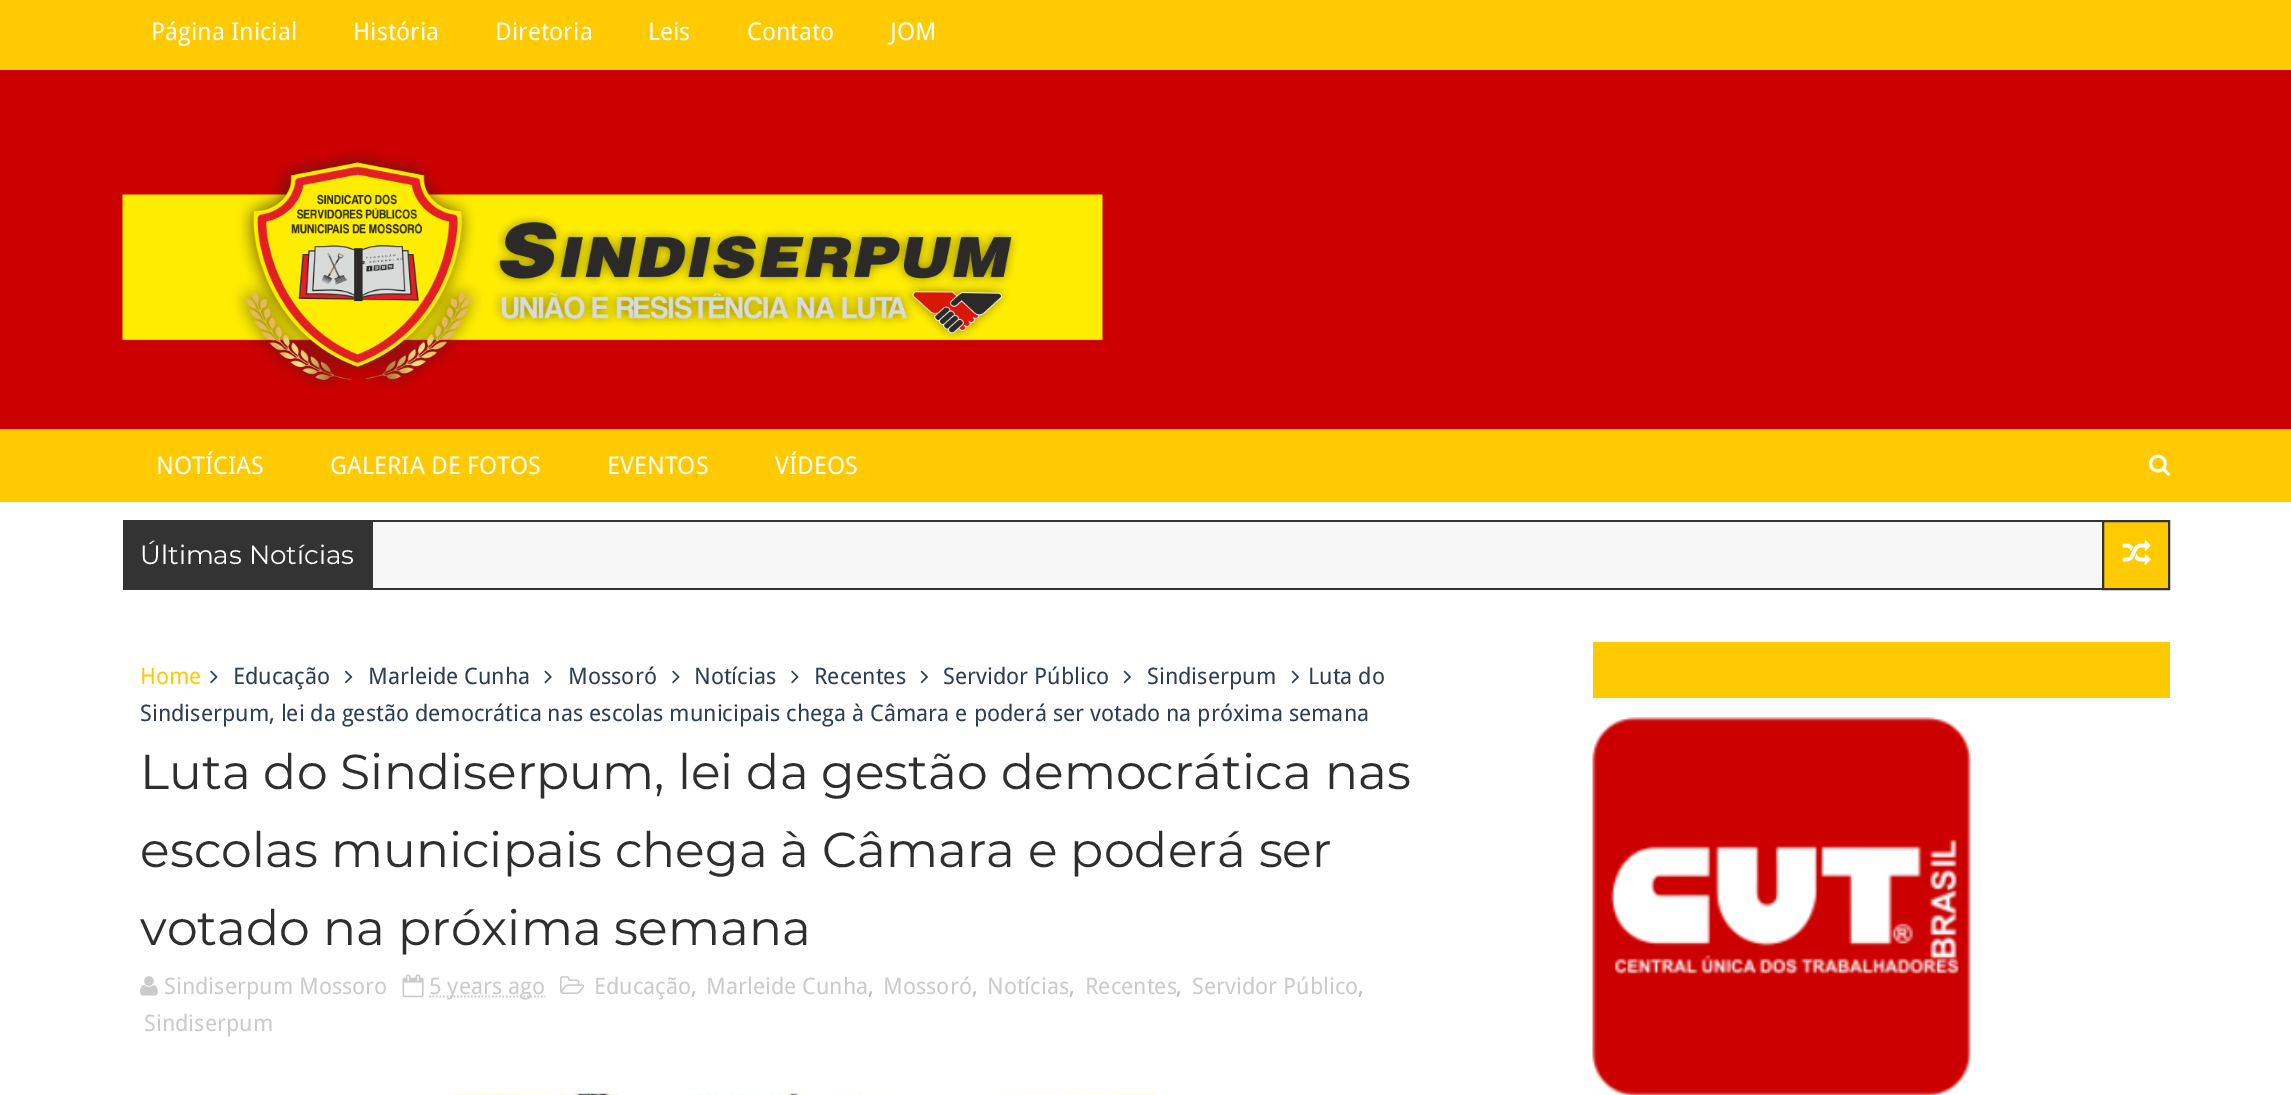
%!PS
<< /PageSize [2291 1095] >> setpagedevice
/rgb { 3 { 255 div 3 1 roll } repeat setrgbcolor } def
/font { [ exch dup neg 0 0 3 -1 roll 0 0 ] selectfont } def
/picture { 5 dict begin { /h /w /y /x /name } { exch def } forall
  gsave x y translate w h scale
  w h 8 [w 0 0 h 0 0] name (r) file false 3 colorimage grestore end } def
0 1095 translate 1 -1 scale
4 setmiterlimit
255 255 255 rgb
0 0 2291 1095 rectfill
204 0 0 rgb
0 70 2291 359 rectfill
255 202 0 rgb
0 0 2291 70 rectfill
(img/1.rgb) 122 149 981 242 picture
0 429 2291 73 rectfill
(img/2.rgb) 2149 454 22 22 picture
[
  [373 522 1729 66 247 247 247]
  [371 520 1731 2 51 51 51]
  [371 588 1731 2 51 51 51]
  [123 520 250 70 51 51 51]
] { aload pop rgb rectfill } forall
255 202 0 rgb
2103 521 moveto 2169 521 lineto 2169 589 lineto 2103 589 lineto closepath gsave fill grestore
51 51 51 rgb
2 setlinewidth
stroke
(img/3.rgb) 2122 540 29 25 picture
(img/4.rgb) 210 670 8 14 picture
(img/5.rgb) 345 670 8 14 picture
(img/6.rgb) 544 670 8 14 picture
(img/4.rgb) 672 670 8 14 picture
(img/4.rgb) 791 670 8 14 picture
(img/7.rgb) 920 670 8 14 picture
(img/7.rgb) 1123 670 8 14 picture
(img/7.rgb) 1291 670 8 14 picture
(img/8.rgb) 560 976 25 18 picture
(img/9.rgb) 140 976 18 20 picture
(img/10.rgb) 402 974 22 24 picture
203 203 203 rgb
1.8 setlinewidth
[1.75 1.75] 0 setdash
429 996.5 moveto 545.5 996.5 lineto stroke
(img/11.rgb) 455 1093 700 2 picture
255 202 0 rgb
1593 642 577 56 rectfill
(img/12.rgb) 1592 717 379 378 picture
/DroidSans-Regular 24.5 font
255 255 255 rgb
[
  [(Página Inicial) 151 40]
  [(História) 353 40]
  [(Diretoria) 495 40]
  [(Leis) 648 40]
  [(Contato) 747 40]
  [(JOM) 890 40]
  [(NOTÍCIAS) 156 474]
  [(GALERIA DE FOTOS) 330 474]
  [(EVENTOS) 607 474]
  [(VÍDEOS) 775 474]
] { aload pop moveto show } forall
/Montserrat-Regular 26.25 font
140 564 moveto (Últimas Notícias) show
/DroidSans-Regular 22.75 font
255 202 0 rgb
140 684 moveto (Home) show
44 62 80 rgb
[
  [(Educação) 233 684]
  [(Marleide Cunha) 368 684]
  [(Mossoró) 568 684]
  [(Notícias) 694 684]
  [(Recentes) 814 684]
  [(Servidor Público) 943 684]
  [(Sindiserpum) 1147 684]
  [(Luta do) 1308 684]
  [(Sindiserpum, lei da gestão democrática nas escolas municipais chega à Câmara e poderá ser votado na próxima semana) 140 721]
] { aload pop moveto show } forall
/Montserrat-Regular 49 font
46 46 46 rgb
[
  [(Luta do Sindiserpum, lei da gestão democrática nas) 140 789]
  [(escolas municipais chega à Câmara e poderá ser) 140 867]
  [(votado na próxima semana) 140 945]
] { aload pop moveto show } forall
/DroidSans-Regular 22.75 font
203 203 203 rgb
594 994 moveto (Educação) show
189 189 189 rgb
691 994 moveto (,) show
203 203 203 rgb
706 994 moveto (Marleide Cunha) show
189 189 189 rgb
868 994 moveto (,) show
203 203 203 rgb
883 994 moveto (Mossoró) show
189 189 189 rgb
972 994 moveto (,) show
203 203 203 rgb
987 994 moveto (Notícias) show
189 189 189 rgb
1069 994 moveto (,) show
203 203 203 rgb
1085 994 moveto (Recentes) show
189 189 189 rgb
1176 994 moveto (,) show
203 203 203 rgb
1192 994 moveto (Servidor Público) show
189 189 189 rgb
1358 994 moveto (,) show
203 203 203 rgb
[
  [(Sindiserpum) 144 1031]
  [(Sindiserpum Mossoro) 164 994]
  [(5 years ago) 429 994]
] { aload pop moveto show } forall
showpage
